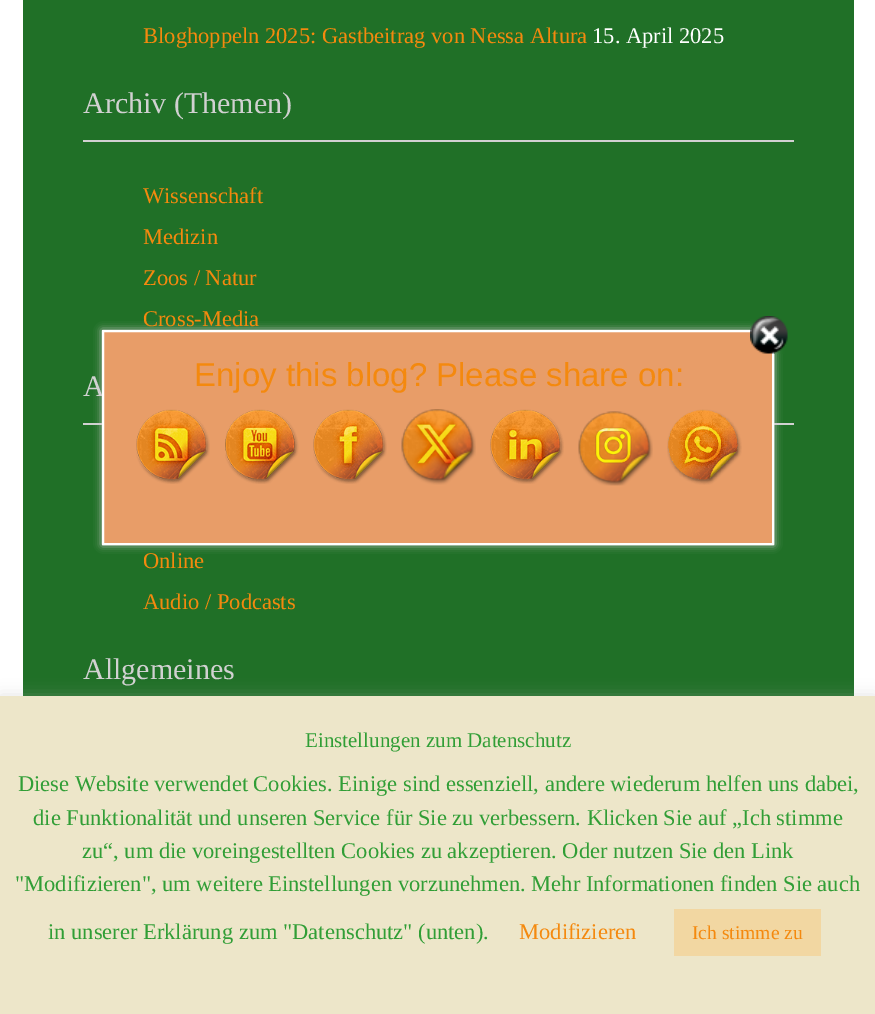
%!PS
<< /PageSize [875 1014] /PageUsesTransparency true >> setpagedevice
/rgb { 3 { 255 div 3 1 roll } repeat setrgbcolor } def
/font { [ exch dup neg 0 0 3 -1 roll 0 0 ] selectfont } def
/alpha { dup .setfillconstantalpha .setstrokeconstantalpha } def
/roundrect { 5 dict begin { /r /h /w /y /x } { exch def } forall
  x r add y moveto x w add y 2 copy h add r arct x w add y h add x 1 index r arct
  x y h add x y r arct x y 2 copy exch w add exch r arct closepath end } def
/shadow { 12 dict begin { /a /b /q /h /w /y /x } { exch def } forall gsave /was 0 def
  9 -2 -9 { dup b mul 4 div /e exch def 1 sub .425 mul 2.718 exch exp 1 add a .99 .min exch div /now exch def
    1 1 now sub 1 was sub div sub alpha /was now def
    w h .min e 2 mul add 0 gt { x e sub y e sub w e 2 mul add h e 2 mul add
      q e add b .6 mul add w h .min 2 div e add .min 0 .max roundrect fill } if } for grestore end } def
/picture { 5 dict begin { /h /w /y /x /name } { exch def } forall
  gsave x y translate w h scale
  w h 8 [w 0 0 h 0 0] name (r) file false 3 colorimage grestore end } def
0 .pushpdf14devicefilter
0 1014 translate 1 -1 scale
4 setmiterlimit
255 255 255 rgb
0 0 875 1014 rectfill
[
  [23 0 831 696 32 112 39]
  [83 140 711 2 209 209 209]
  [83 423 711 2 209 209 209]
] { aload pop rgb rectfill } forall
204 204 204 rgb
102 330 672 215 0 4 1 shadow
172 171 171 rgb
0 695 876 318 0 7.5 0.3 shadow
237 230 201 rgb
0 696 875 318 rectfill
242 215 162 rgb
674 909 147 47 rectfill
/LiberationSerif-Regular 22.5 font
244 137 14 rgb
143 43 moveto (Bloghoppeln 2025: Gastbeitrag von Nessa Altura) show
255 255 255 rgb
592 43 moveto (15. April 2025) show
/LiberationSerif-Regular 30 font
209 209 209 rgb
83 113 moveto (Archiv \(Themen\)) show
/LiberationSerif-Regular 22.5 font
244 137 14 rgb
[
  [(Wissenschaft) 143 203]
  [(Medizin) 143 244]
  [(Zoos / Natur) 143 285]
  [(Cross-Media) 143 326]
] { aload pop moveto show } forall
/LiberationSerif-Regular 30 font
209 209 209 rgb
83 396 moveto (A) show
/LiberationSerif-Regular 22.5 font
244 137 14 rgb
143 568 moveto (Online) show
143 609 moveto (Audio / Podcasts) show
/LiberationSerif-Regular 30 font
209 209 209 rgb
83 679 moveto (Allgemeines) show
232 157 104 rgb
103 331 moveto 773 331 lineto 773 544 lineto 103 544 lineto closepath gsave fill grestore
255 255 255 rgb
2 setlinewidth
stroke
(img/1.rgb) 750 316 38 38 picture
/LiberationSans-Regular 33 font
244 137 14 rgb
194 386 moveto (Enjoy this blog? Please share on:) show
(img/2.rgb) 136 409 74 75 picture
(img/3.rgb) 225 409 74 75 picture
(img/4.rgb) 313 409 74 75 picture
(img/5.rgb) 401 409 75 76 picture
(img/6.rgb) 490 409 74 75 picture
(img/7.rgb) 578 411 75 75 picture
(img/8.rgb) 667 409 75 76 picture
/LiberationSerif-Regular 21 font
49 158 54 rgb
305 747 moveto (Einstellungen zum Datenschutz) show
/LiberationSerif-Regular 22.5 font
[
  [(Diese Website verwendet Cookies. Einige sind essenziell, andere wiederum helfen uns dabei,) 18 791]
  [(die Funktionalität und unseren Service für Sie zu verbessern. Klicken Sie auf „Ich stimme) 33 825]
  [(zu“, um die voreingestellten Cookies zu akzeptieren. Oder nutzen Sie den Link) 82 858]
  [("Modifizieren", um weitere Einstellungen vorzunehmen. Mehr Informationen finden Sie auch) 15 891]
  [(in unserer Erklärung zum "Datenschutz" \(unten\).) 48 939]
] { aload pop moveto show } forall
244 137 14 rgb
519 939 moveto (Modifizieren) show
/LiberationSerif-Regular 19.5 font
692 939 moveto (Ich stimme zu) show
.poppdf14devicefilter showpage
